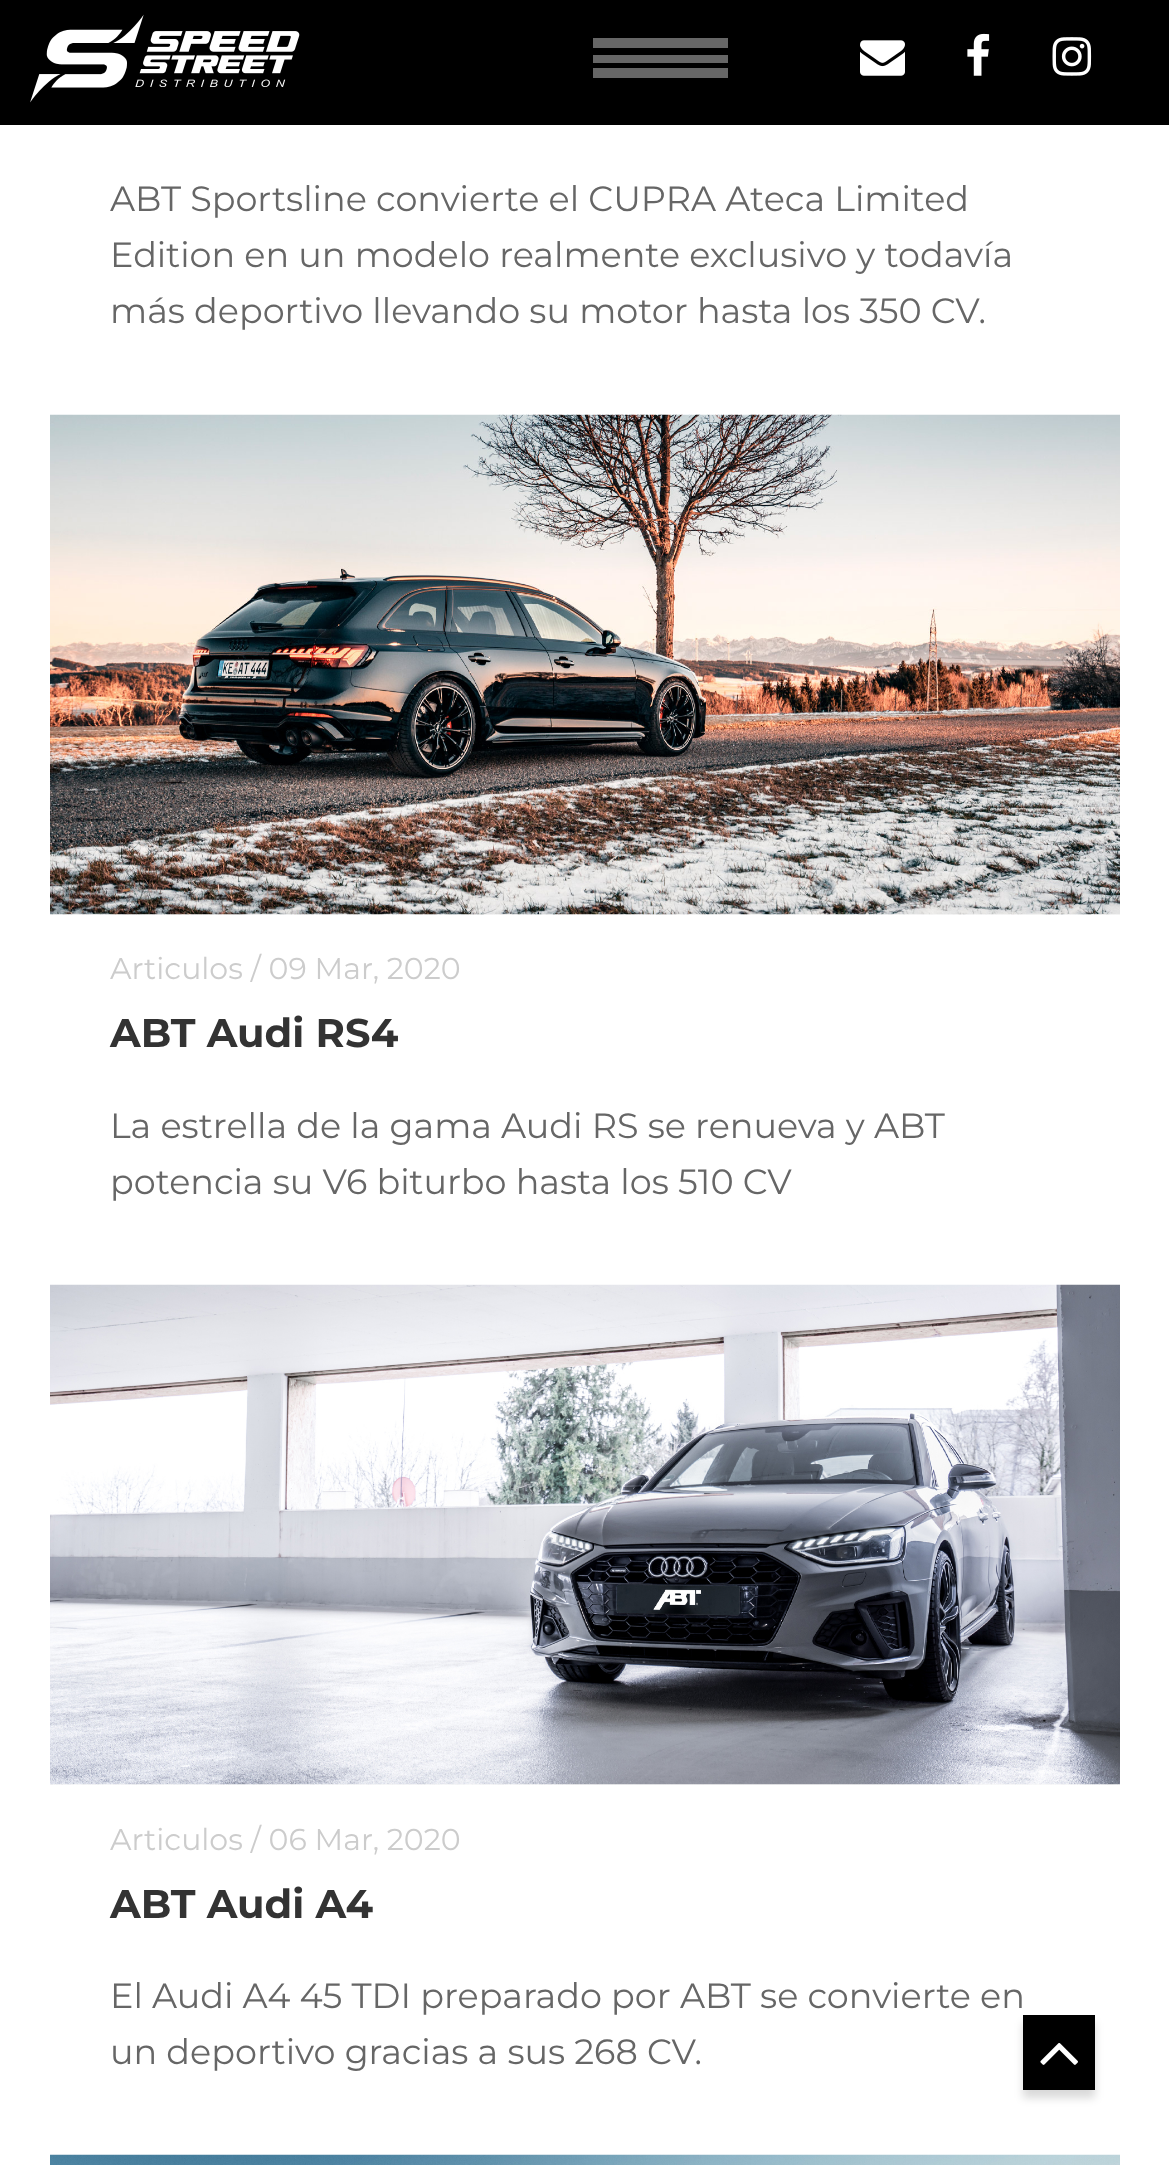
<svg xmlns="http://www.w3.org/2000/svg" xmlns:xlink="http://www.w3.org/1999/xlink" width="1169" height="2165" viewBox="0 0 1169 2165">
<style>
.cls-1{font:35px Montserrat;fill:#666666}
.cls-2{font:30px Montserrat;fill:#cccccc}
.cls-3{font:bold 40px Montserrat;fill:#333333}
</style>
<rect width="100%" height="100%" fill="#ffffff"/>
<rect fill="#000000" x="0" y="0" width="1169" height="125"/>
<image xlink:href="image0.png" x="30" y="14" width="270" height="89"/>
<rect fill="#666666" x="593" y="38" width="135" height="10"/>
<rect fill="#666666" x="593" y="55" width="135" height="8"/>
<rect fill="#666666" x="593" y="68" width="135" height="10"/>
<image xlink:href="image1.png" x="860" y="40" width="45" height="36"/>
<image xlink:href="image2.png" x="967" y="33" width="23" height="43"/>
<image xlink:href="image3.png" x="1052" y="37" width="40" height="39"/>
<rect fill="#f8f8f8" x="50" y="914" width="1070" height="1"/>
<image xlink:href="image4.png" x="50" y="414" width="1070" height="501"/>
<rect fill="#f8f8f8" x="50" y="1784" width="1070" height="1"/>
<image xlink:href="image5.png" x="50" y="1284" width="1070" height="501"/>
<image xlink:href="image6.png" x="50" y="2154" width="1070" height="11"/>
<rect fill="#000000" fill-opacity="0.15" filter="blur(4px)" x="1023" y="2023" width="72" height="75"/>
<rect fill="#000000" x="1023" y="2015" width="72" height="75"/>
<image xlink:href="image7.png" x="1040" y="2043" width="38" height="22"/>
<text class="cls-1"><tspan x="110" y="211">ABT Sportsline convierte el CUPRA Ateca Limited</tspan><tspan x="110" y="267">Edition en un modelo realmente exclusivo y todavía</tspan><tspan x="110" y="323">más deportivo llevando su motor hasta los 350 CV.</tspan></text>
<text class="cls-2" x="110" y="979">Articulos / 09 Mar, 2020</text>
<text class="cls-3" x="110" y="1047">ABT Audi RS4</text>
<text class="cls-1"><tspan x="110" y="1138">La estrella de la gama Audi RS se renueva y ABT</tspan><tspan x="110" y="1194">potencia su V6 biturbo hasta los 510 CV</tspan></text>
<text class="cls-2" x="110" y="1850">Articulos / 06 Mar, 2020</text>
<text class="cls-3" x="110" y="1918">ABT Audi A4</text>
<text class="cls-1"><tspan x="110" y="2008">El Audi A4 45 TDI preparado por ABT se convierte en</tspan><tspan x="110" y="2064">un deportivo gracias a sus 268 CV.</tspan></text>
</svg>
